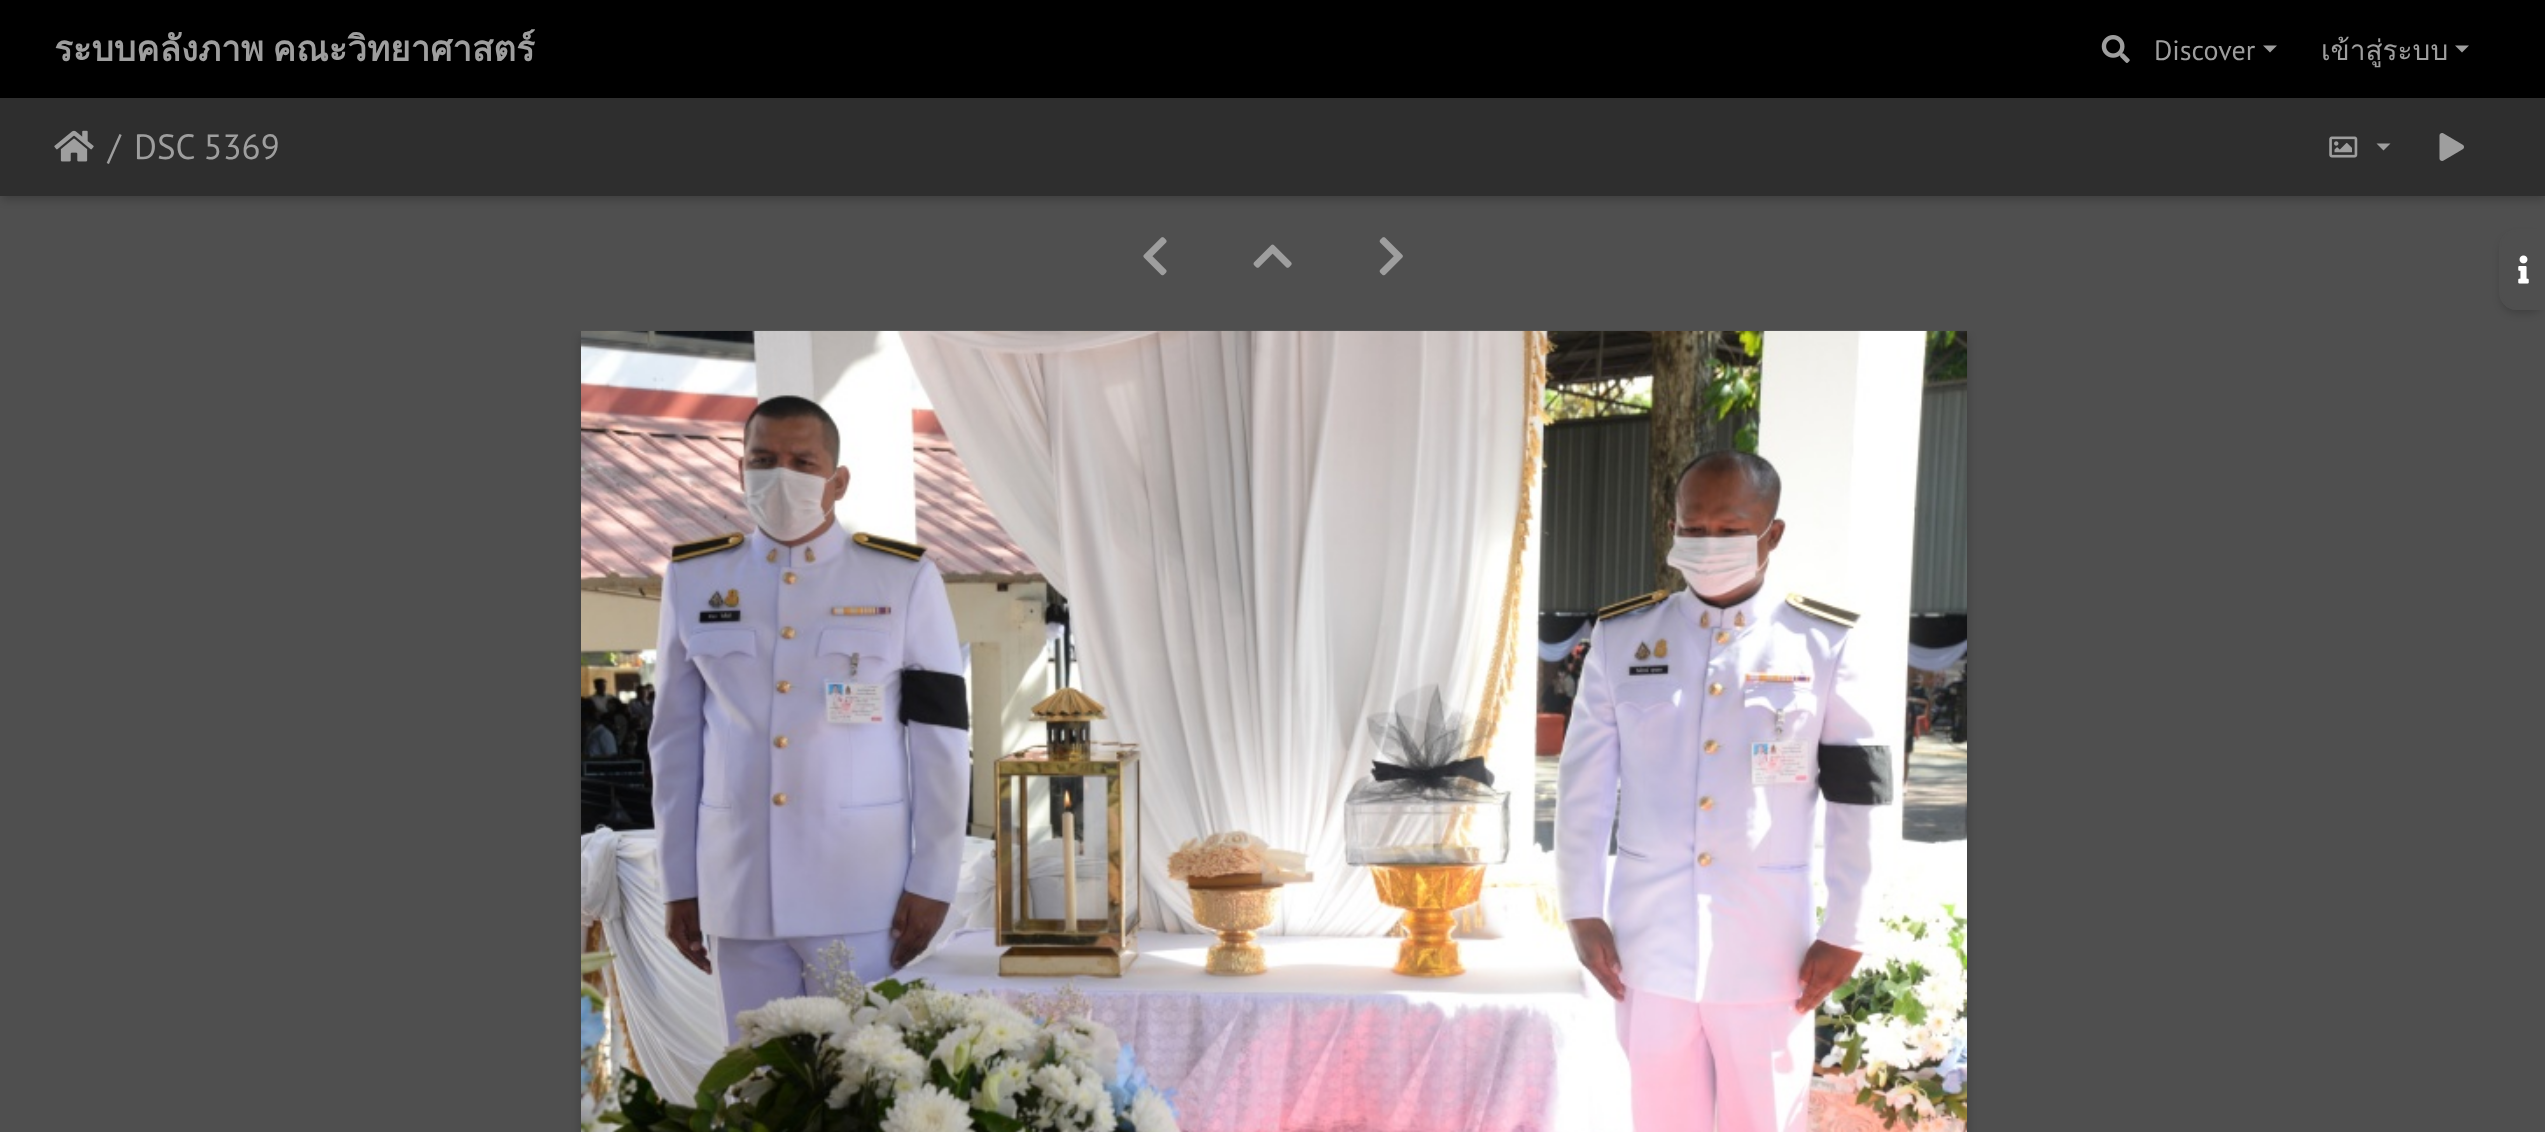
<svg xmlns="http://www.w3.org/2000/svg" xmlns:xlink="http://www.w3.org/1999/xlink" width="2545" height="1132" viewBox="0 0 2545 1132">
<style>
.cls-1{font:bold 35px Loma;fill:#9e9e9e}
.cls-2{font:28px PT Sans;fill:#9e9e9e}
.cls-3{font:28px Loma;fill:#9e9e9e}
.cls-4{font:35px PT Sans;fill:#9e9e9e}
</style>
<defs>
<clipPath id="clip1"><rect x="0" y="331" width="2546" height="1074"/></clipPath>
</defs>
<rect width="100%" height="100%" fill="#4f4f4f"/>
<rect fill="#000000" fill-opacity="0.2" filter="blur(4.5px)" x="2" y="105" width="2543" height="95"/>
<rect fill="#000000" x="0" y="0" width="2545" height="98"/>
<image xlink:href="image0.png" x="2101" y="35" width="29" height="28"/>
<path fill="#9e9e9e" d="M2263 45.5H2277L2270 52.5Z"/>
<path fill="#9e9e9e" d="M2455 45.5H2469L2462 52.5Z"/>
<rect fill="#2e2e2e" x="0" y="98" width="2545" height="98"/>
<image xlink:href="image1.png" x="54" y="130" width="40" height="32"/>
<image xlink:href="image2.png" x="2329" y="136" width="29" height="22"/>
<path fill="#9e9e9e" d="M2376.5 143.5H2390.5L2383.5 150.5Z"/>
<image xlink:href="image3.png" x="2439" y="133" width="25" height="28"/>
<image xlink:href="image4.png" x="1143" y="237" width="24" height="39"/>
<image xlink:href="image5.png" x="1253" y="244" width="39" height="24"/>
<image xlink:href="image6.png" x="1379" y="237" width="24" height="39"/>
<rect fill="#000000" fill-opacity="0.2" filter="blur(4.5px)" x="2501" y="236" width="44" height="77" rx="16"/>
<path fill="#4f4f4f" d="M2517 229H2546V310H2517C2507 310 2499 302 2499 292V247C2499 237 2507 229 2517 229Z"/>
<path fill="#4f4f4f" fill-rule="evenodd" d="M2516 229H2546V310H2516C2507 310 2499 302 2499 292V247C2499 237 2507 229 2516 229ZM2516 231H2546V308H2516C2508 308 2501 301 2501 292V247C2501 238 2508 231 2516 231Z"/>
<image xlink:href="image7.png" x="2518" y="255" width="11" height="29"/>
<g clip-path="url(#clip1)">
<rect fill="#000000" fill-opacity="0.23" filter="blur(5px)" x="581" y="336" width="1386" height="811"/>
</g>
<image xlink:href="image8.png" x="581" y="330" width="1386" height="802"/>
<text class="cls-1" x="54" y="61" word-spacing="-3">ระบบคลังภาพ คณะวิทยาศาสตร์</text>
<text class="cls-2" x="2154" y="60">Discover</text>
<text class="cls-3" x="2321" y="60">เข้าสู่ระบบ</text>
<text class="cls-4" x="108" y="159">/</text>
<text class="cls-4" x="134" y="159">DSC 5369</text>
</svg>
